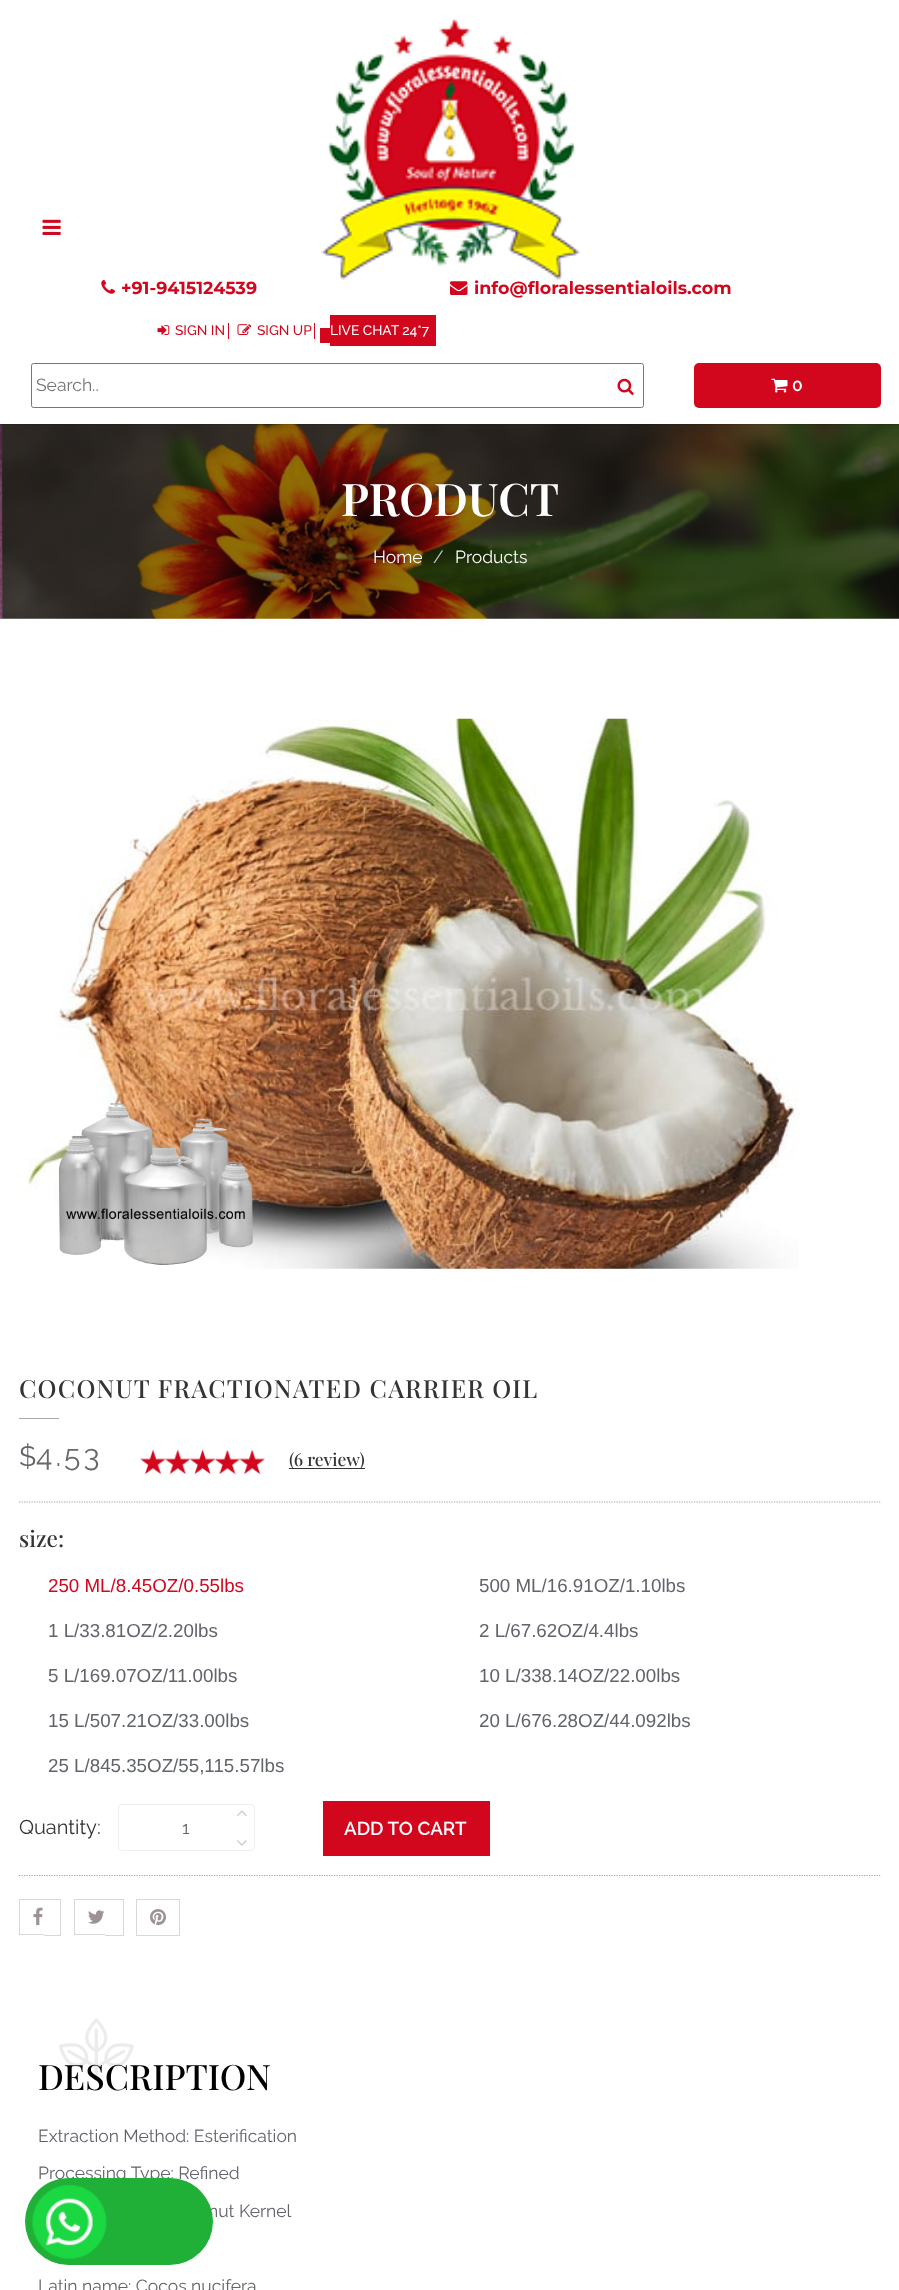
<svg xmlns="http://www.w3.org/2000/svg" xmlns:xlink="http://www.w3.org/1999/xlink" width="899" height="2290" viewBox="0 0 899 2290">
<style>
.cls-1{font:bold 17.5px Montserrat;fill:#d2061d}
.cls-2{font:500 13.75px Raleway;fill:#d2061d}
.cls-3{font:500 13.75px Raleway;fill:#ffffff}
.cls-4{font:17.5px Raleway;fill:#757575}
.cls-5{font:600 17.5px Raleway;fill:#ffffff}
.cls-6{font:600 45px Playfair Display;fill:#ffffff}
.cls-7{font:17.5px Raleway;fill:#ffffff}
.cls-8{font:17.5px Raleway;fill:#cccccc}
.cls-9{font:500 25px Playfair Display;letter-spacing:1.25px;fill:#343434}
.cls-10{font:28px Raleway;fill:#62646c}
.cls-11{font:30px Raleway;letter-spacing:3px;fill:#696969}
.cls-12{font:500 17.5px Playfair Display;fill:#343434}
.cls-13{font:500 22.5px Playfair Display;fill:#343434}
.cls-14{font:18.75px Liberation Sans;fill:#d2061d}
.cls-15{font:18.75px Liberation Sans;fill:#62646c}
.cls-16{font:20px Raleway;fill:#343434}
.cls-17{font:17.5px Raleway;fill:#62646c}
.cls-18{font:600 18.75px Raleway;fill:#ffffff}
.cls-19{font:500 35px Playfair Display;fill:#000000}
</style>
<rect width="100%" height="100%" fill="#ffffff"/>
<image xlink:href="image8.png" x="0" y="424" width="899" height="195"/>
<rect fill="#000000" fill-opacity="0.1" filter="blur(0.5px)" x="0" y="1" width="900" height="424"/>
<rect fill="#ffffff" x="0" y="0" width="899" height="424"/>
<image xlink:href="image0.png" x="321" y="18" width="259" height="262"/>
<image xlink:href="image1.png" x="42" y="219" width="19" height="16"/>
<image xlink:href="image2.png" x="101" y="280" width="14" height="14"/>
<image xlink:href="image3.png" x="450" y="281" width="18" height="14"/>
<rect fill="#d2061d" x="228" y="323" width="1" height="16"/>
<image xlink:href="image4.png" x="157" y="325" width="13" height="10"/>
<rect fill="#d2061d" x="314" y="323" width="1" height="16"/>
<image xlink:href="image5.png" x="237" y="324" width="15" height="11"/>
<rect fill="#d2061d" x="320" y="328" width="10" height="15"/>
<rect fill="#d2061d" x="330" y="315" width="106" height="31"/>
<rect fill="none" stroke="#767676" x="31.5" y="363.5" width="612" height="44" rx="2"/>
<image xlink:href="image6.png" x="617" y="378" width="17" height="17"/>
<rect fill="#d2061d" x="694" y="363" width="187" height="45" rx="5"/>
<image xlink:href="image7.png" x="771" y="378" width="17" height="15"/>
<image xlink:href="image9.png" x="24" y="718" width="775" height="551"/>
<image xlink:href="image10.png" x="58" y="1103" width="195" height="162"/>
<rect fill="#ababab" x="19" y="1418" width="40" height="1"/>
<image xlink:href="image11.png" x="140" y="1449" width="125" height="26"/>
<rect fill="#343434" x="289" y="1468" width="76" height="1"/>
<path fill="none" stroke="#a1a0a0" stroke-width="1.2" stroke-dasharray="1.25 1.25" d="M19 1502H881"/>
<path fill="none" stroke="#a1a0a0" stroke-width="1.2" stroke-dasharray="1.25 1.25" d="M19 1875.5H881"/>
<rect fill="none" stroke="#eeeeee" x="118.5" y="1804.5" width="136" height="46" rx="3.5"/>
<image xlink:href="image12.png" x="237" y="1810" width="10" height="6"/>
<image xlink:href="image13.png" x="237" y="1840" width="10" height="6"/>
<rect fill="#d2061d" x="323" y="1801" width="167" height="55"/>
<rect fill="#d8d8d8" x="19" y="1899" width="42" height="1"/>
<rect fill="#d8d8d8" x="19" y="1934" width="25" height="1"/>
<rect fill="#d8d8d8" x="19" y="1899" width="1" height="36"/>
<rect fill="#d8d8d8" x="60" y="1899" width="1" height="37"/>
<rect fill="#d8d8d8" x="44" y="1935" width="17" height="1"/>
<image xlink:href="image14.png" x="33" y="1907" width="10" height="19"/>
<rect fill="#d8d8d8" x="74" y="1899" width="50" height="1"/>
<rect fill="#d8d8d8" x="74" y="1934" width="31" height="1"/>
<rect fill="#d8d8d8" x="74" y="1899" width="1" height="36"/>
<rect fill="#d8d8d8" x="123" y="1899" width="1" height="37"/>
<rect fill="#d8d8d8" x="105" y="1935" width="19" height="1"/>
<image xlink:href="image15.png" x="88" y="1910" width="17" height="14"/>
<rect fill="none" stroke="#d8d8d8" x="136.5" y="1899.5" width="43" height="36"/>
<image xlink:href="image16.png" x="150" y="1909" width="16" height="17"/>
<text class="cls-1" x="121" y="294">+91-9415124539</text>
<text class="cls-1" x="474" y="294">info@floralessentialoils.com</text>
<text class="cls-2" x="175" y="335">SIGN IN</text>
<text class="cls-2" x="257" y="335">SIGN UP</text>
<text class="cls-3" x="330" y="335">LIVE CHAT 24*7</text>
<text class="cls-4" x="36" y="391">Search..</text>
<text class="cls-5" x="792" y="391">0</text>
<text class="cls-6" x="341" y="516">PRODUCT</text>
<text class="cls-7" x="373" y="563">Home</text>
<text class="cls-8" x="433" y="563">/</text>
<text class="cls-7" x="455" y="563">Products</text>
<text class="cls-9" x="19" y="1398">COCONUT FRACTIONATED CARRIER OIL</text>
<text class="cls-10" x="19" y="1466">$</text>
<text class="cls-11" x="36" y="1466">4.53</text>
<text class="cls-12" x="289" y="1466">(6 review)</text>
<text class="cls-13" x="19" y="1547">size:</text>
<text class="cls-14" x="48" y="1592">250 ML/8.45OZ/0.55lbs</text>
<text class="cls-15" x="479" y="1592">500 ML/16.91OZ/1.10lbs</text>
<text class="cls-15" x="48" y="1637">1 L/33.81OZ/2.20lbs</text>
<text class="cls-15" x="479" y="1637">2 L/67.62OZ/4.4lbs</text>
<text class="cls-15" x="48" y="1682">5 L/169.07OZ/11.00lbs</text>
<text class="cls-15" x="479" y="1682">10 L/338.14OZ/22.00lbs</text>
<text class="cls-15" x="48" y="1727">15 L/507.21OZ/33.00lbs</text>
<text class="cls-15" x="479" y="1727">20 L/676.28OZ/44.092lbs</text>
<text class="cls-15" x="48" y="1772">25 L/845.35OZ/55,115.57lbs</text>
<text class="cls-16" x="19" y="1834">Quantity:</text>
<text class="cls-17" x="182" y="1834">1</text>
<text class="cls-18" x="344" y="1835">ADD TO CART</text>
<text class="cls-19" x="38" y="2090">DESCRIPTION</text>
<image xlink:href="image17.png" x="59" y="2018" width="75" height="58"/>
<text class="cls-17" x="38" y="2142">Extraction Method: Esterification</text>
<text class="cls-17" x="38" y="2179">Processing Type: Refined</text>
<text class="cls-17" x="208" y="2217">nut Kernel</text>
<text class="cls-17" x="38" y="2292">Latin name: Cocos nucifera</text>
<rect fill="#20b038" x="25" y="2178" width="188" height="87" rx="43.5"/>
<image xlink:href="image18.png" x="32" y="2185" width="75" height="74"/>
</svg>
